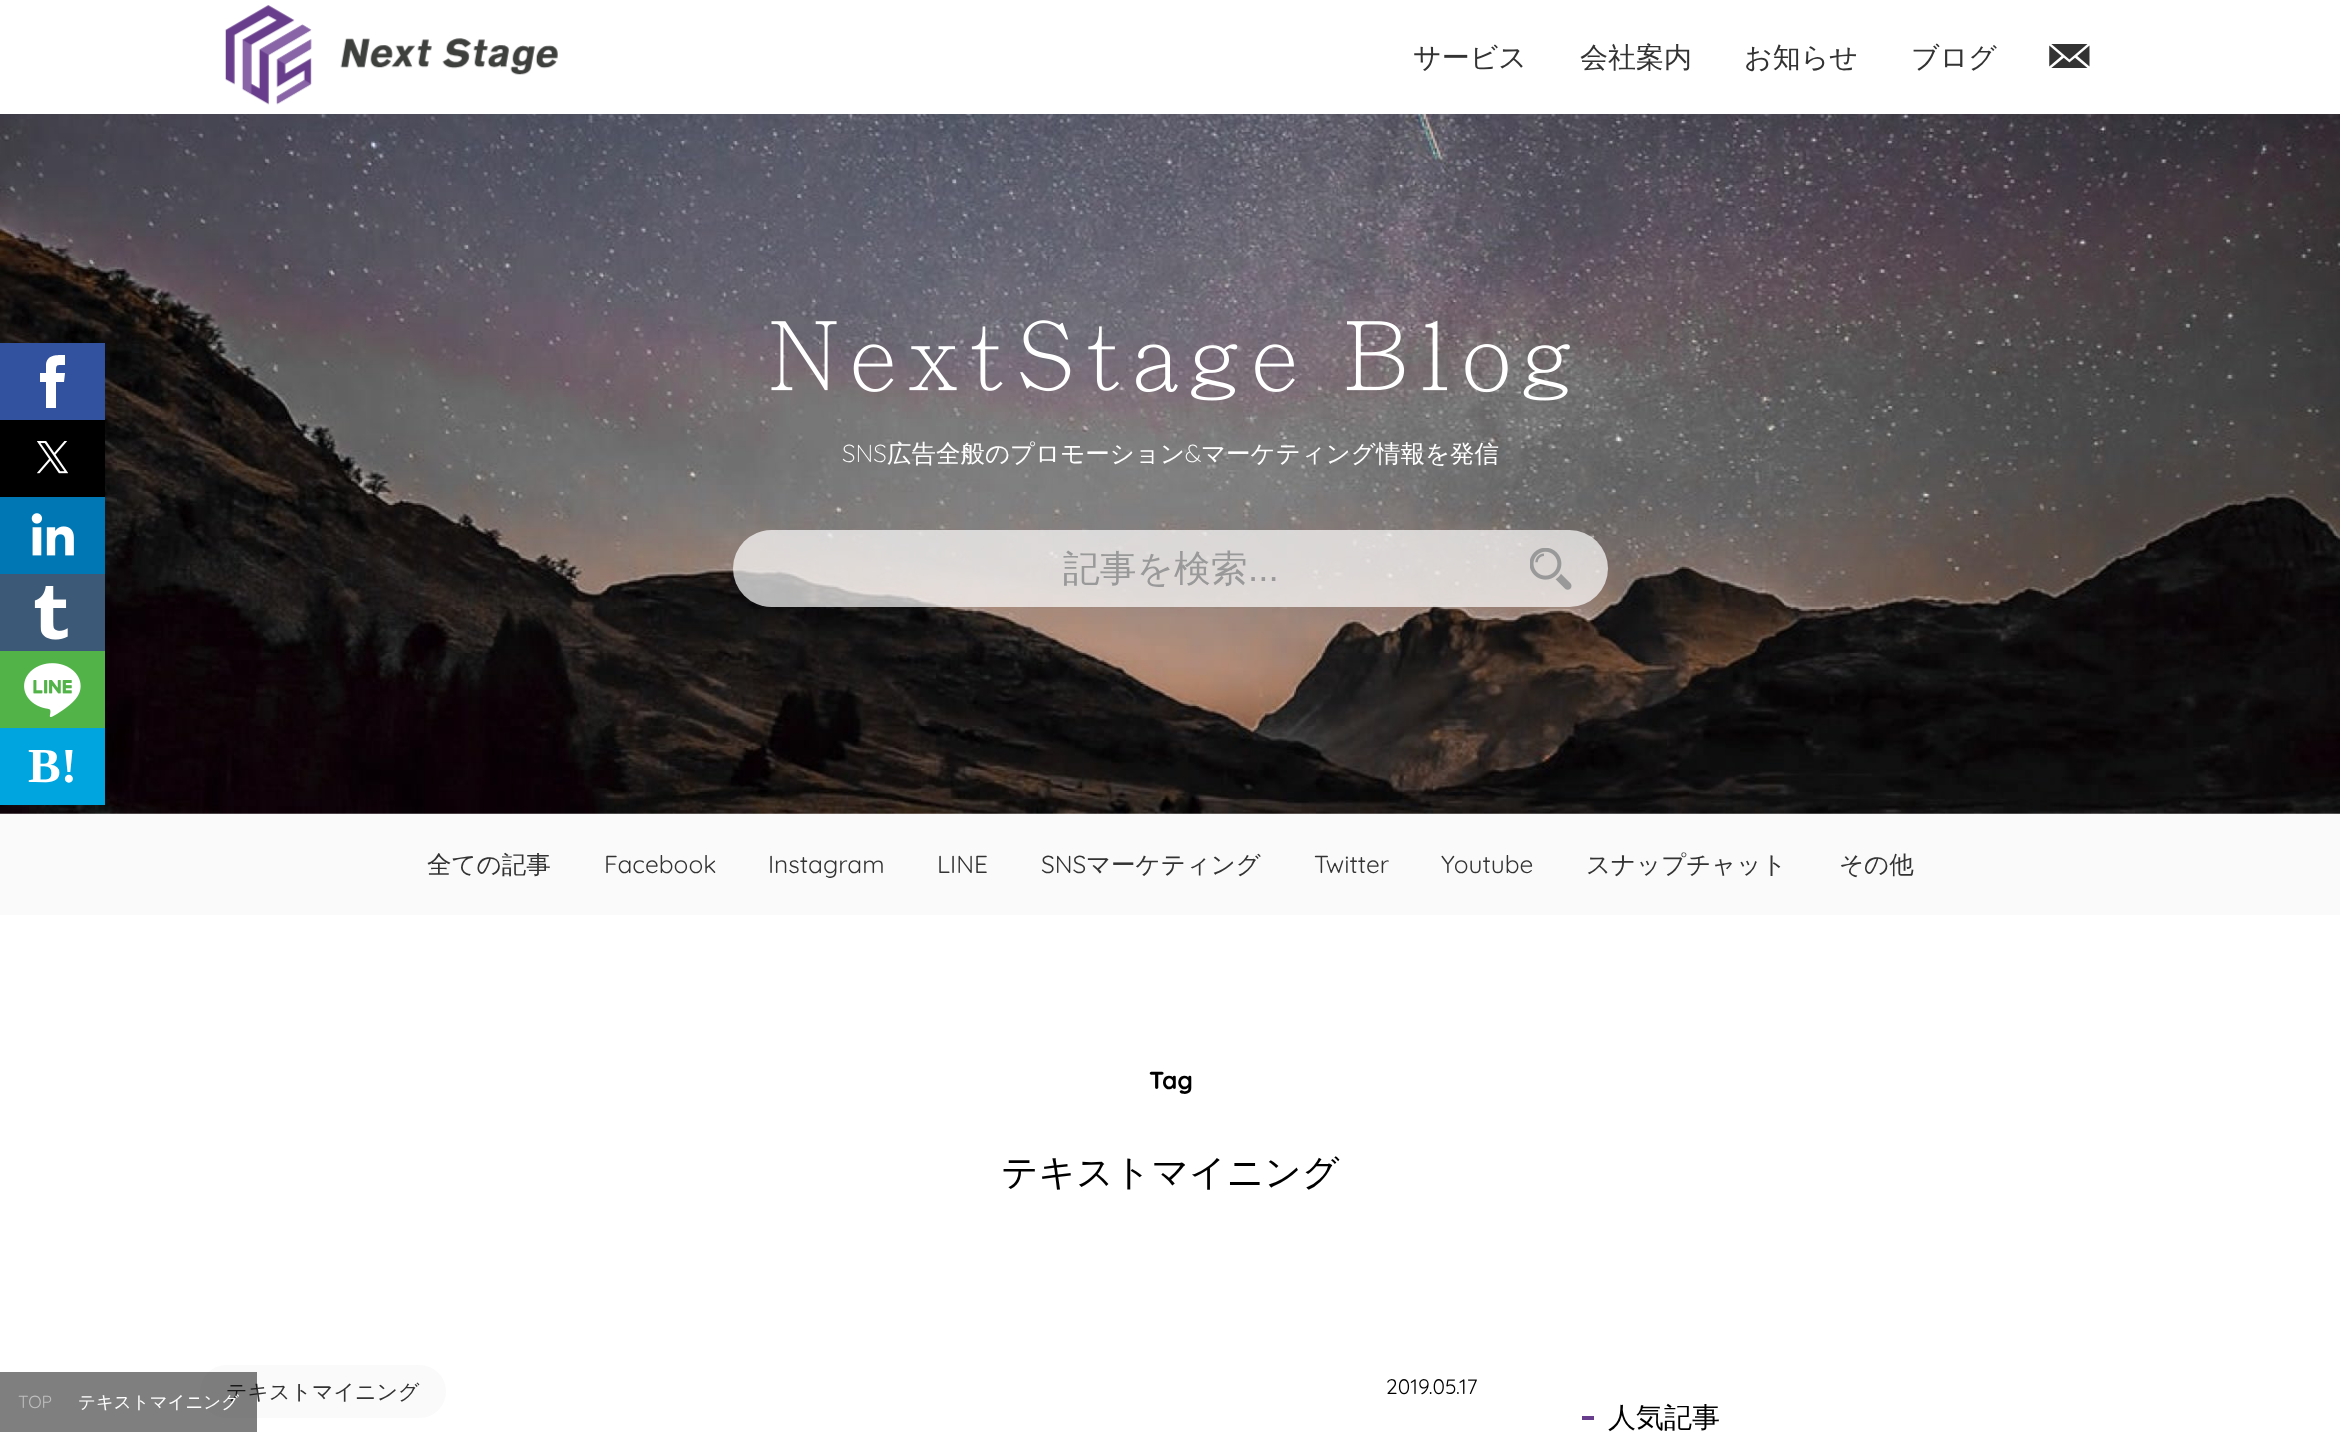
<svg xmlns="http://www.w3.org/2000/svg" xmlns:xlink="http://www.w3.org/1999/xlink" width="2340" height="1432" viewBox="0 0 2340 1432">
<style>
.cls-1{font:500 28px WenQuanYi Zen Hei;fill:#333333}
.cls-2{font:300 24.5px Quicksand;fill:#ffffff}
.cls-3{font:500 24.5px WenQuanYi Zen Hei;fill:#ffffff}
.cls-4{font:500 36.75px WenQuanYi Zen Hei;fill:#999999}
.cls-5{font:36.75px Liberation Sans;fill:#999999}
.cls-6{font:500 24.5px WenQuanYi Zen Hei;fill:#333333}
.cls-7{font:24.5px Quicksand;fill:#333333}
.cls-8{font:bold 24.5px Quicksand;fill:#000000}
.cls-9{font:500 36.75px WenQuanYi Zen Hei;fill:#000000}
.cls-10{font:500 21px WenQuanYi Zen Hei;fill:#333333}
.cls-11{font:17.5px Quicksand;fill:#bfbfbf}
.cls-12{font:500 17.5px WenQuanYi Zen Hei;fill:#ffffff}
.cls-13{font:21px Quicksand;fill:#000000}
.cls-14{font:500 28px WenQuanYi Zen Hei;fill:#000000}
.cls-15{font:bold 49px Liberation Serif;fill:#ffffff}
</style>
<rect width="100%" height="100%" fill="#ffffff"/>
<image xlink:href="image0.png" x="225" y="5" width="333" height="100"/>
<image xlink:href="image1.png" x="2049" y="44" width="41" height="24"/>
<image xlink:href="image2.png" x="0" y="114" width="2340" height="700"/>
<image xlink:href="image3.png" x="771" y="320" width="799" height="81"/>
<rect fill="#ffffff" fill-opacity="0.7" x="733" y="530" width="875" height="77" rx="38.5"/>
<image xlink:href="image4.png" x="1530" y="548" width="42" height="42"/>
<rect fill="#fafafa" x="0" y="814" width="2340" height="101"/>
<rect fill="#fafafa" x="200" y="1365" width="246" height="53" rx="26.5"/>
<rect fill="#683d8d" x="1582" y="1416" width="12" height="4"/>
<rect fill="#32529f" x="0" y="343" width="105" height="77"/>
<path fill="#ffffff" d="M46 373H40V382H46V408H56V382H64L65 373H56C56 364 56 365 65 365V355C57 355 46 354 46 366Z"/>
<rect fill="#000000" x="0" y="420" width="105" height="77"/>
<image xlink:href="image5.png" x="37" y="441" width="31" height="33"/>
<rect fill="#0077b5" x="0" y="497" width="105" height="77"/>
<image xlink:href="image6.png" x="31" y="513" width="43" height="43"/>
<rect fill="#3c5a77" x="0" y="574" width="105" height="77"/>
<image xlink:href="image7.png" x="34" y="586" width="34" height="54"/>
<rect fill="#52b448" x="0" y="651" width="105" height="77"/>
<image xlink:href="image8.png" x="24" y="663" width="57" height="54"/>
<rect fill="#00a4de" x="0" y="728" width="105" height="77"/>
<text class="cls-1" x="1413" y="67">サービス</text>
<text class="cls-1" x="1580" y="67">会社案内</text>
<text class="cls-1" x="1744" y="67">お知らせ</text>
<text class="cls-1" x="1911" y="67">ブログ</text>
<text class="cls-2" x="842" y="462">SNS</text>
<text class="cls-3" x="887" y="462">広告全般のプロモーション</text>
<text class="cls-2" x="1185" y="462">&amp;</text>
<text class="cls-3" x="1201" y="462">マーケティング情報を発信</text>
<text class="cls-4" x="1063" y="581">記事を検索</text>
<text class="cls-5" x="1248" y="581">...</text>
<text class="cls-6" x="427" y="873">全ての記事</text>
<text class="cls-7" x="604" y="873">Facebook</text>
<text class="cls-7" x="768" y="873">Instagram</text>
<text class="cls-7" x="937" y="873">LINE</text>
<text class="cls-7" x="1041" y="873">SNS</text>
<text class="cls-6" x="1086" y="873">マーケティング</text>
<text class="cls-7" x="1314" y="873">Twitter</text>
<text class="cls-7" x="1441" y="873">Youtube</text>
<text class="cls-6" x="1586" y="873">スナップチャット</text>
<text class="cls-6" x="1839" y="873">その他</text>
<text class="cls-8" x="1149" y="1089">Tag</text>
<text class="cls-9" x="1001" y="1185">テキストマイニング</text>
<text class="cls-10" x="226" y="1399">テキストマイニング</text>
<rect fill="#000000" fill-opacity="0.5" x="0" y="1372" width="257" height="60"/>
<text class="cls-11" x="18" y="1408">TOP</text>
<text class="cls-12" x="78" y="1408">テキストマイニング</text>
<text class="cls-13" x="1386" y="1394">2019.05.17</text>
<text class="cls-14" x="1608" y="1427">人気記事</text>
<text class="cls-15" x="28" y="782">B!</text>
</svg>
